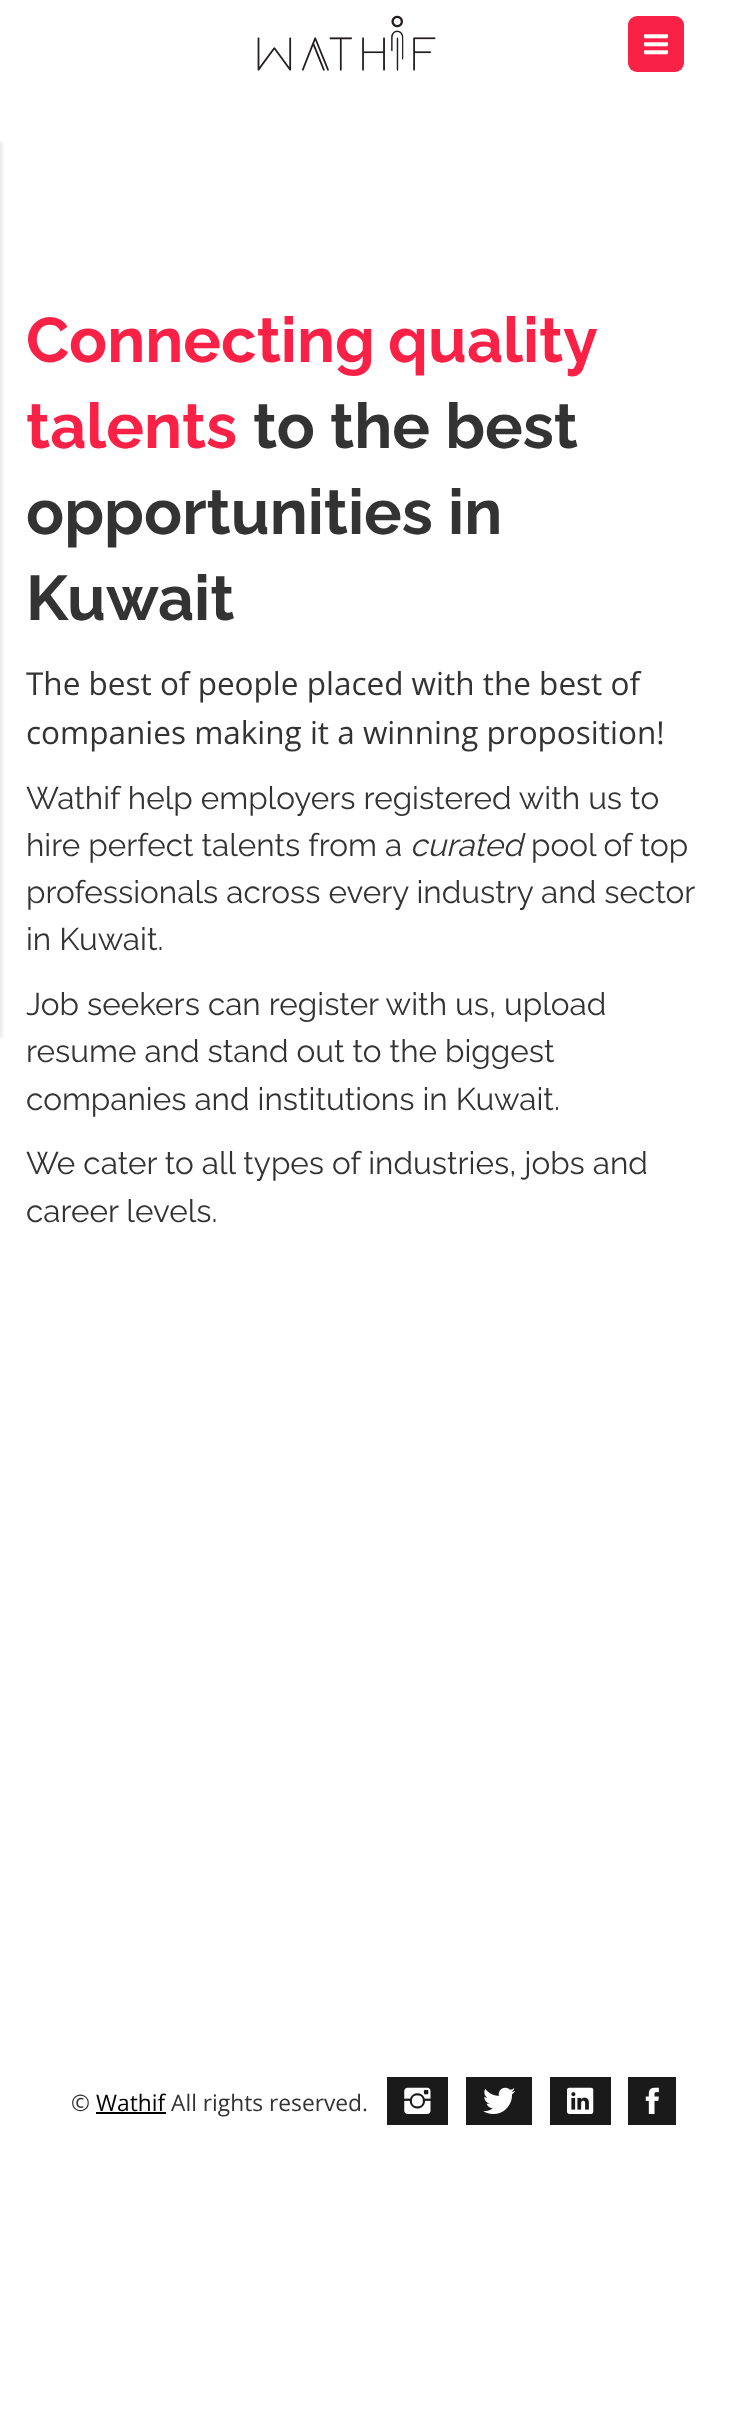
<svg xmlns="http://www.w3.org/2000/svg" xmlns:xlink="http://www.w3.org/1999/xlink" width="736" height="2431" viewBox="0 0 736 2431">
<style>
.cls-1{font:bold 63px Raleway;fill:#fa2147}
.cls-2{font:bold 63px Raleway;fill:#333333}
.cls-3{font:31.5px Open Sans;fill:#333333}
.cls-4{font:31.5px Raleway;fill:#333333}
.cls-5{font:italic 31.5px Raleway;fill:#333333}
.cls-6{font:22.75px Open Sans;fill:#333333}
.cls-7{font:22.75px Open Sans;fill:#000000}
</style>
<rect width="100%" height="100%" fill="#ffffff"/>
<rect fill="#000000" fill-opacity="0.1" filter="blur(2px)" x="-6" y="142" width="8" height="896"/>
<image xlink:href="image0.png" x="257" y="15" width="179" height="56"/>
<rect fill="#fa2147" x="628" y="16" width="56" height="56" rx="9"/>
<image xlink:href="image1.png" x="644" y="34" width="24" height="21"/>
<rect fill="#000000" x="96" y="2112" width="70" height="2"/>
<rect fill="#1a1a1a" x="387" y="2077" width="61" height="48"/>
<image xlink:href="image2.png" x="404" y="2087" width="27" height="27"/>
<rect fill="#1a1a1a" x="466" y="2077" width="66" height="48"/>
<image xlink:href="image3.png" x="483" y="2087" width="32" height="27"/>
<rect fill="#1a1a1a" x="550" y="2077" width="61" height="48"/>
<image xlink:href="image4.png" x="567" y="2087" width="27" height="27"/>
<rect fill="#1a1a1a" x="628" y="2077" width="48" height="48"/>
<image xlink:href="image5.png" x="645" y="2087" width="14" height="27"/>
<text class="cls-1"><tspan x="26" y="362" word-spacing="-2">Connecting quality</tspan><tspan x="26" y="448">talents</tspan></text>
<text class="cls-2" x="253" y="448">to the best</text>
<text class="cls-2"><tspan x="26" y="534">opportunities in</tspan><tspan x="26" y="620">Kuwait</tspan></text>
<text class="cls-3"><tspan x="26" y="695">The best of people placed with the best of</tspan><tspan x="26" y="744">companies making it a winning proposition!</tspan></text>
<text class="cls-4"><tspan x="26" y="809">Wathif help employers registered with us to</tspan><tspan x="26" y="856">hire perfect talents from a</tspan></text>
<text class="cls-5" x="410" y="856">curated</text>
<text class="cls-4" x="531" y="856">pool of top</text>
<text class="cls-4"><tspan x="26" y="903">professionals across every industry and sector</tspan><tspan x="26" y="950">in Kuwait.</tspan></text>
<text class="cls-4"><tspan x="26" y="1015">Job seekers can register with us, upload</tspan><tspan x="26" y="1062">resume and stand out to the biggest</tspan><tspan x="26" y="1110">companies and institutions in Kuwait.</tspan></text>
<text class="cls-4"><tspan x="26" y="1174">We cater to all types of industries, jobs and</tspan><tspan x="26" y="1222">career levels.</tspan></text>
<text class="cls-6" x="71" y="2111">©</text>
<text class="cls-7" x="96" y="2111">Wathif</text>
<text class="cls-6" x="171" y="2111">All rights reserved.</text>
</svg>
